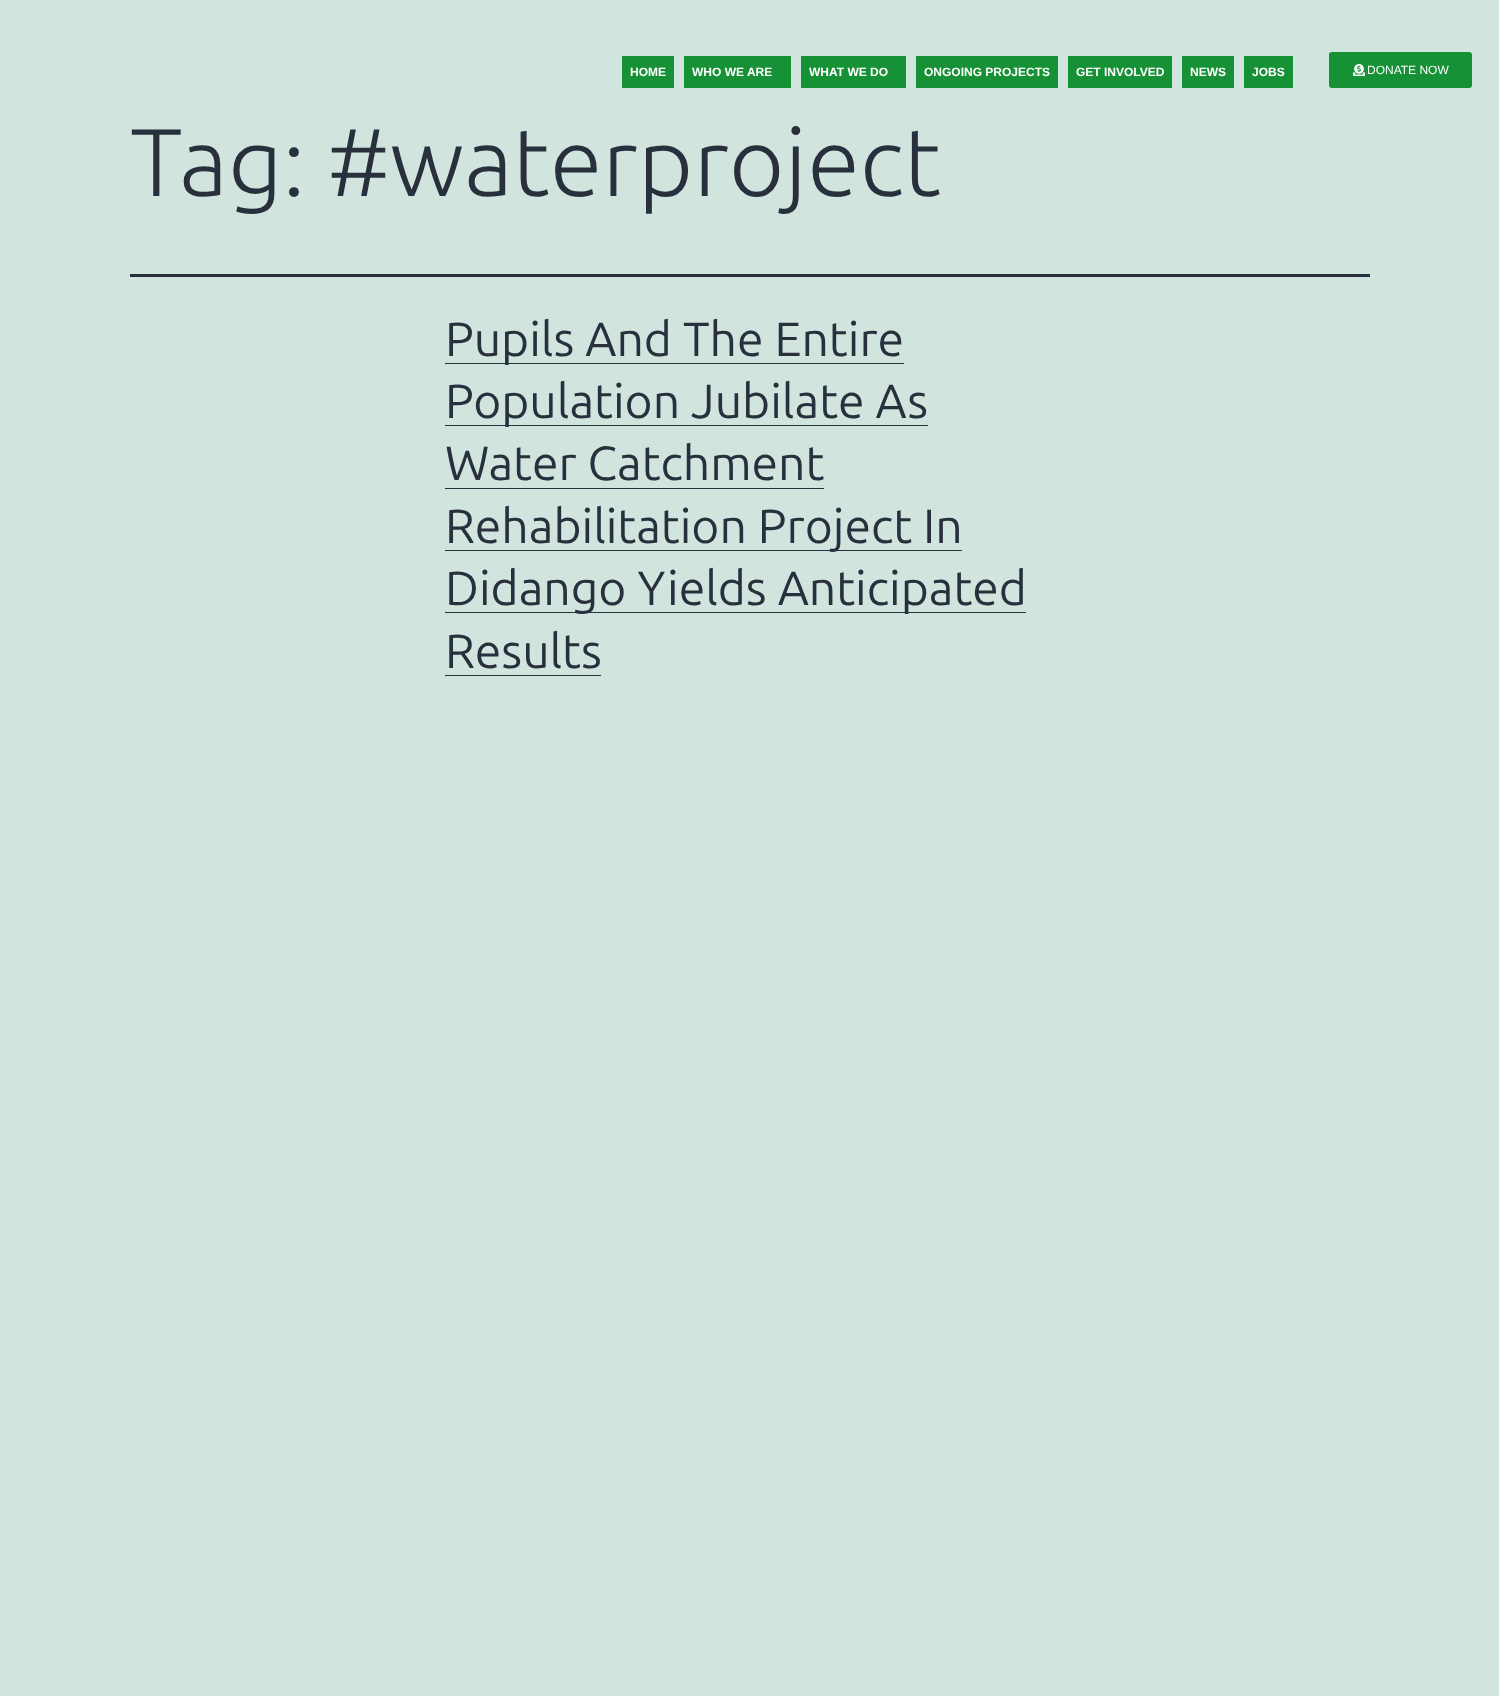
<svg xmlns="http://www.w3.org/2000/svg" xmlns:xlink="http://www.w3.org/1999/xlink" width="1499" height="1696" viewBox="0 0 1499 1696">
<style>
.cls-1{font:bold 12px Liberation Sans;fill:#ffffff}
.cls-2{font:12px Liberation Sans;fill:#ffffff}
.cls-3{font:300 96px Ubuntu;fill:#28303d}
.cls-4{font:48px Ubuntu;fill:#28303d}
</style>
<rect width="100%" height="100%" fill="#d1e4dd"/>
<rect fill="#169135" x="622" y="56" width="52" height="32"/>
<rect fill="#169135" x="684" y="56" width="107" height="32"/>
<rect fill="#169135" x="801" y="56" width="105" height="32"/>
<rect fill="#169135" x="916" y="56" width="142" height="32"/>
<rect fill="#169135" x="1068" y="56" width="104" height="32"/>
<rect fill="#169135" x="1182" y="56" width="52" height="32"/>
<rect fill="#169135" x="1244" y="56" width="49" height="32"/>
<rect fill="#169135" x="1329" y="52" width="143" height="36" rx="3"/>
<image xlink:href="image0.png" x="1353" y="64" width="12" height="12"/>
<rect fill="#28303d" x="130" y="274" width="1240" height="3"/>
<rect fill="#28303d" x="445" y="363" width="459" height="1"/>
<rect fill="#28303d" x="445" y="425" width="483" height="1"/>
<rect fill="#28303d" x="445" y="488" width="379" height="1"/>
<rect fill="#28303d" x="445" y="550" width="517" height="1"/>
<rect fill="#28303d" x="445" y="612" width="581" height="1"/>
<rect fill="#28303d" x="445" y="675" width="156" height="1"/>
<text class="cls-1" x="630" y="76">HOME</text>
<text class="cls-1" x="692" y="76">WHO WE ARE</text>
<text class="cls-1" x="809" y="76">WHAT WE DO</text>
<text class="cls-1" x="924" y="76">ONGOING PROJECTS</text>
<text class="cls-1" x="1076" y="76">GET INVOLVED</text>
<text class="cls-1" x="1190" y="76">NEWS</text>
<text class="cls-1" x="1252" y="76">JOBS</text>
<text class="cls-2" x="1367" y="74">DONATE NOW</text>
<text class="cls-3" x="130" y="196">Tag: #waterproject</text>
<text class="cls-4"><tspan x="445" y="356">Pupils And The Entire</tspan><tspan x="445" y="418">Population Jubilate As</tspan><tspan x="445" y="480">Water Catchment</tspan><tspan x="445" y="543">Rehabilitation Project In</tspan><tspan x="445" y="605">Didango Yields Anticipated</tspan><tspan x="445" y="668">Results</tspan></text>
</svg>
